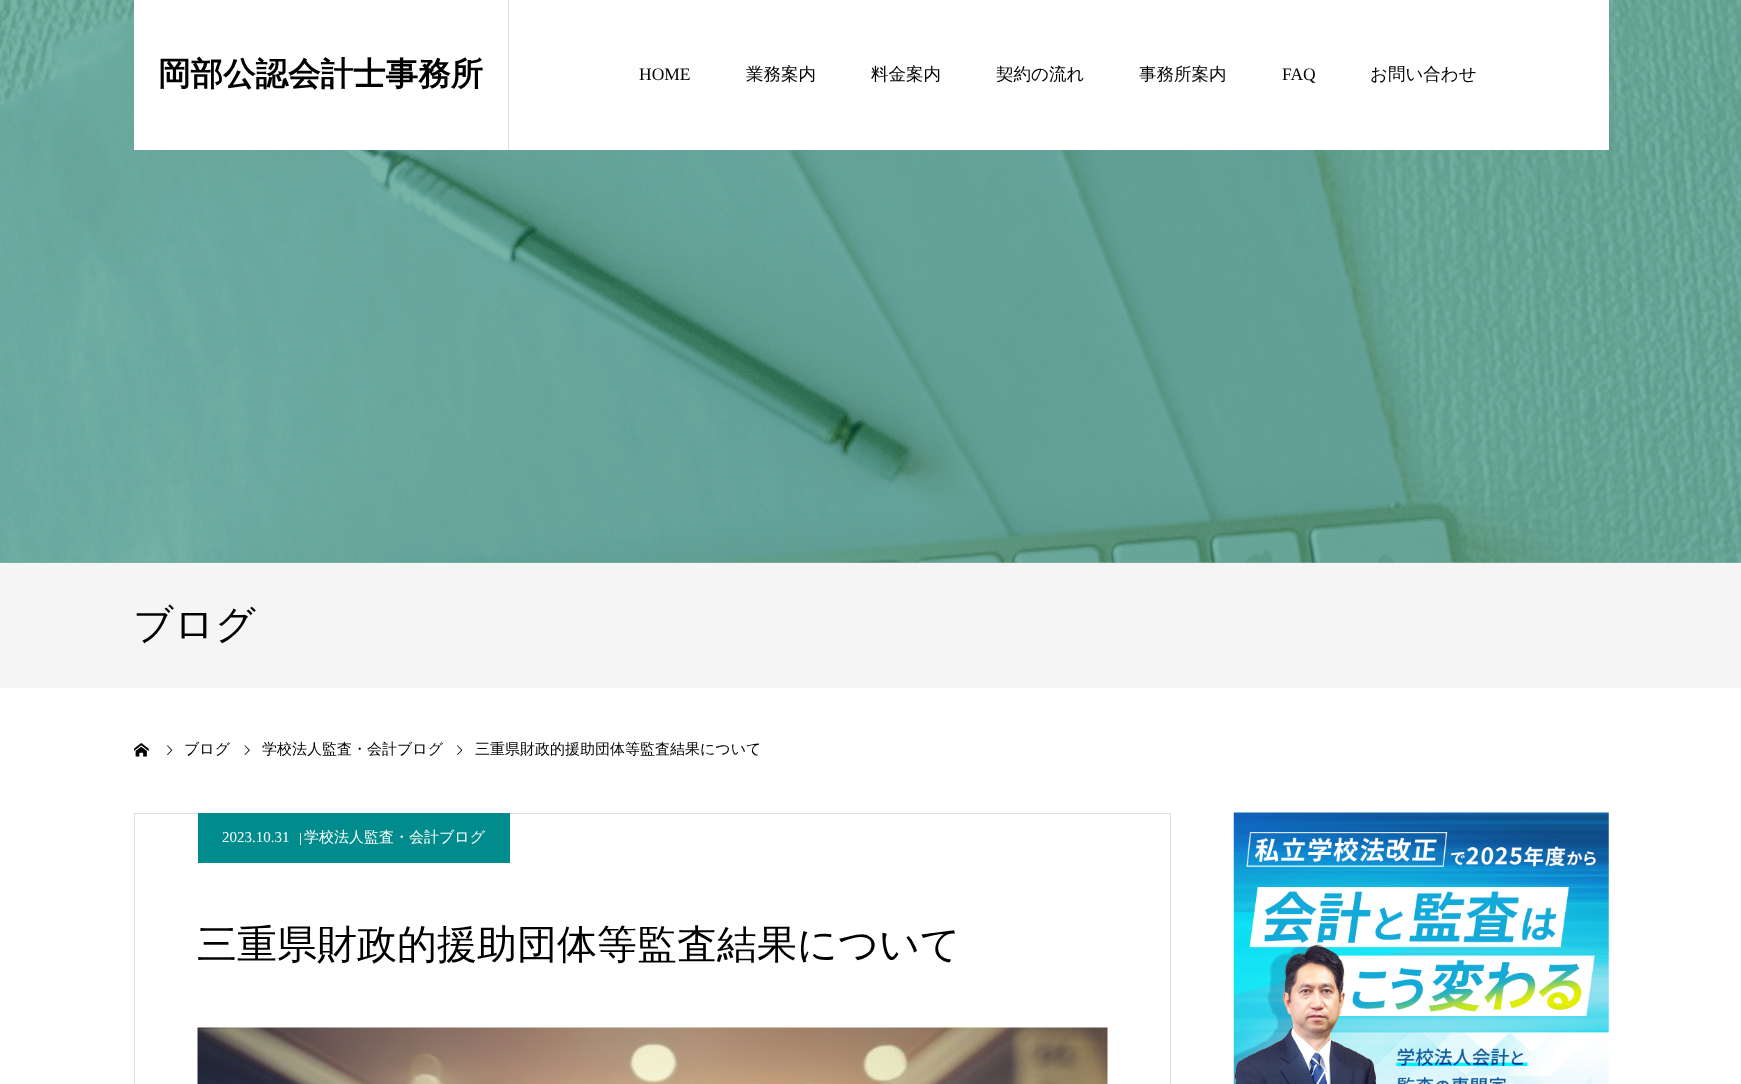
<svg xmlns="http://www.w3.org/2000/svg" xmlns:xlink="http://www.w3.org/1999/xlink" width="1741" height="1084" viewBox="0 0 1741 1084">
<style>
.cls-1{font:bold 32.5px WenQuanYi Zen Hei;fill:#000000}
.cls-2{font:17.5px Liberation Serif;fill:#000000}
.cls-3{font:500 17.5px WenQuanYi Zen Hei;fill:#000000}
.cls-4{font:500 40px WenQuanYi Zen Hei;fill:#000000}
.cls-5{font:500 15px WenQuanYi Zen Hei;fill:#000000}
.cls-6{font:15px Liberation Serif;fill:#ffffff}
.cls-7{font:500 15px WenQuanYi Zen Hei;fill:#ffffff}
</style>
<rect width="100%" height="100%" fill="#ffffff"/>
<rect fill="#80bdad" x="0" y="562" width="1741" height="1"/>
<image xlink:href="image0.png" x="0" y="0" width="1741" height="563"/>
<rect fill="#ffffff" x="134" y="0" width="1475" height="150"/>
<rect fill="#dddddd" x="508" y="0" width="1" height="150"/>
<rect fill="#f5f5f5" x="0" y="563" width="1741" height="125"/>
<image xlink:href="image1.png" x="134" y="743" width="15" height="14"/>
<image xlink:href="image2.png" x="167" y="745" width="6" height="10"/>
<image xlink:href="image3.png" x="244" y="745" width="6" height="10"/>
<image xlink:href="image2.png" x="457" y="745" width="6" height="10"/>
<rect fill="none" stroke="#dddddd" x="134.5" y="813.5" width="1036" height="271"/>
<rect fill="#008c8c" x="198" y="813" width="312" height="50"/>
<rect fill="#ffffff" x="300" y="833" width="1" height="12"/>
<image xlink:href="image4.png" x="197" y="1027" width="911" height="57"/>
<image xlink:href="image5.png" x="1233" y="812" width="376" height="272"/>
<text class="cls-1" x="158" y="85">岡部公認会計士事務所</text>
<text class="cls-2" x="639" y="80">HOME</text>
<text class="cls-3" x="746" y="80">業務案内</text>
<text class="cls-3" x="871" y="80">料金案内</text>
<text class="cls-3" x="996" y="80">契約の流れ</text>
<text class="cls-3" x="1139" y="80">事務所案内</text>
<text class="cls-2" x="1282" y="80">FAQ</text>
<text class="cls-3" x="1370" y="80">お問い合わせ</text>
<text class="cls-4" x="133" y="638">ブログ</text>
<text class="cls-5" x="184" y="754">ブログ</text>
<text class="cls-5" x="262" y="754">学校法人監査・会計ブログ</text>
<text class="cls-5" x="475" y="754">三重県財政的援助団体等監査結果について</text>
<text class="cls-6" x="222" y="842">2023.10.31</text>
<text class="cls-7" x="304" y="842">学校法人監査・会計ブログ</text>
<text class="cls-4" x="197" y="958">三重県財政的援助団体等監査結果について</text>
</svg>
